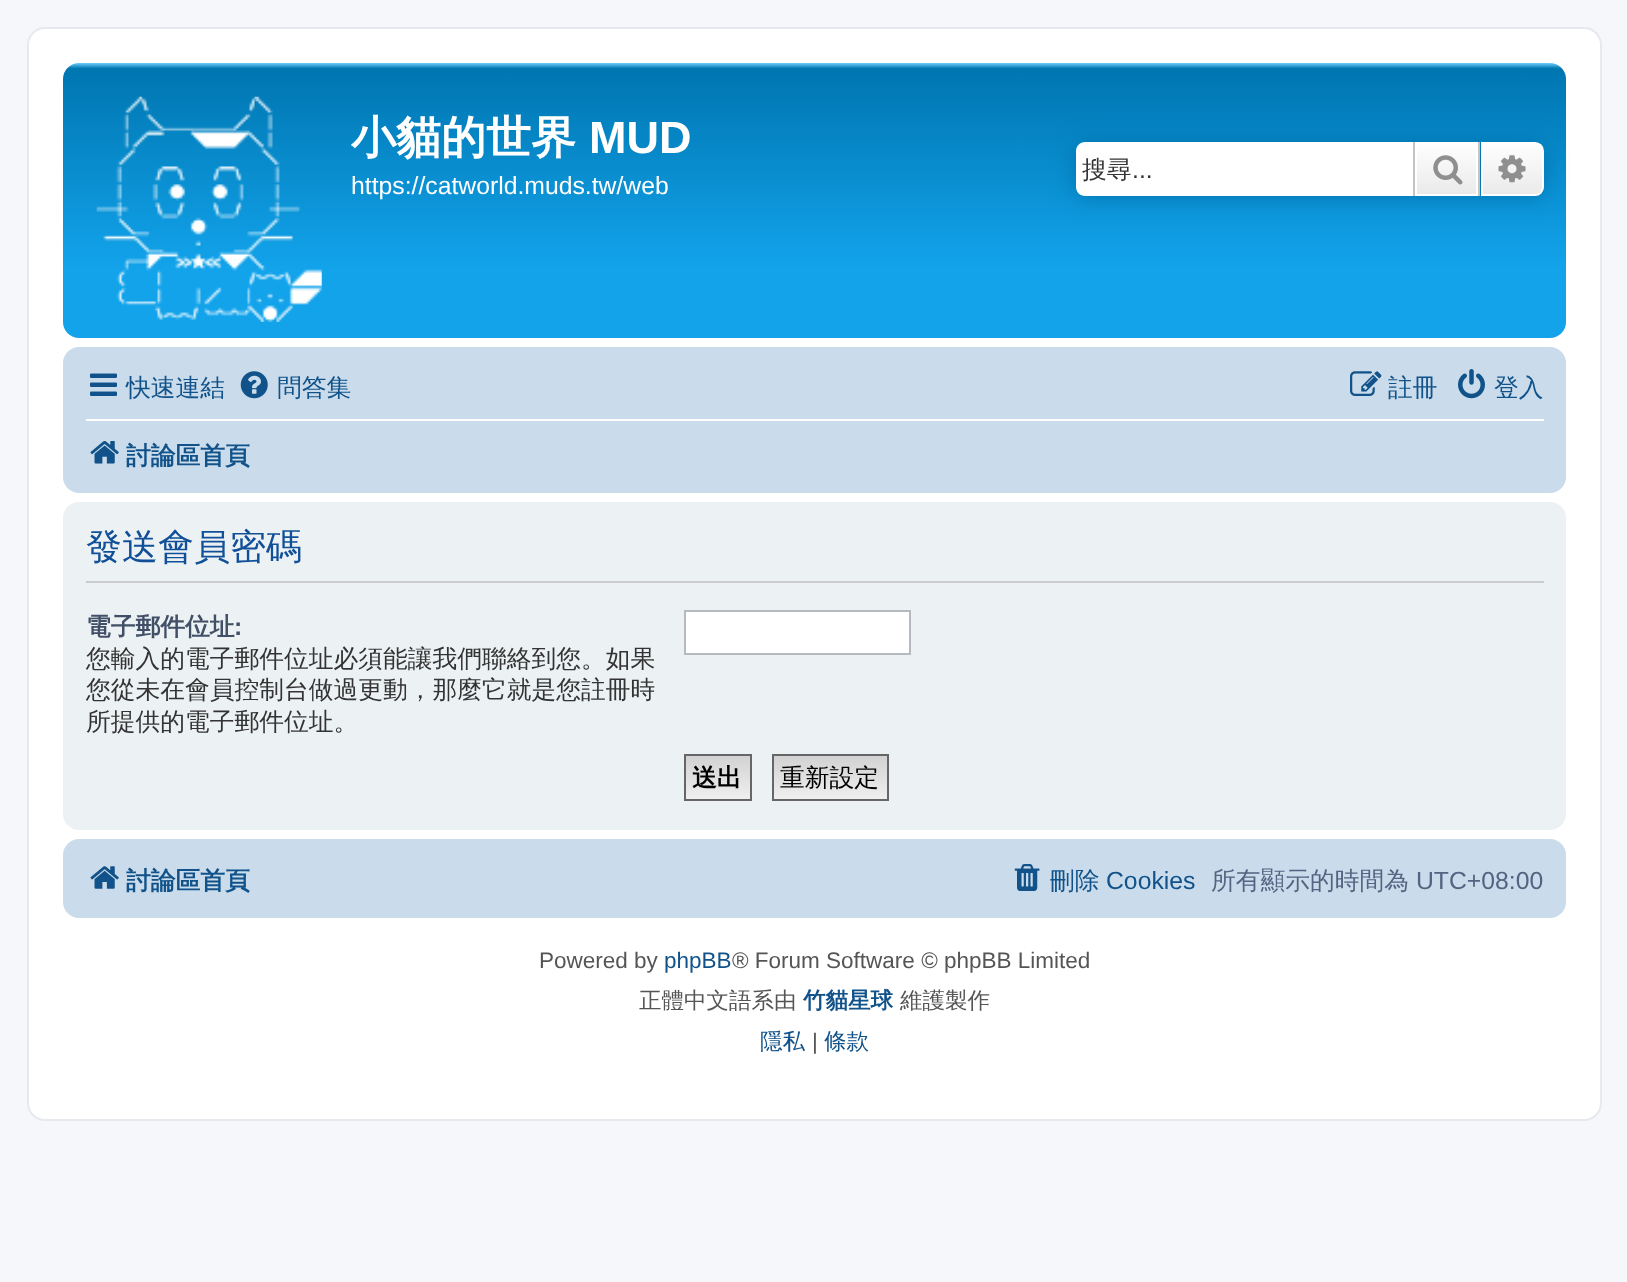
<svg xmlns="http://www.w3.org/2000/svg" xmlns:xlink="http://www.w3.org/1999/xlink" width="1627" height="1282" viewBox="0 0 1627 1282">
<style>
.cls-1{font:bold 45px WenQuanYi Zen Hei;fill:#ffffff}
.cls-2{font:bold 45px Liberation Sans;fill:#ffffff}
.cls-3{font:24.75px Liberation Sans;fill:#ffffff}
.cls-4{font:500 24.75px WenQuanYi Zen Hei;fill:#333333}
.cls-5{font:24.75px Liberation Sans;fill:#333333}
.cls-6{font:500 24.75px WenQuanYi Zen Hei;fill:#105289}
.cls-7{font:bold 24.75px WenQuanYi Zen Hei;fill:#105289}
.cls-8{font:500 36px WenQuanYi Zen Hei;fill:#115098}
.cls-9{font:bold 24.75px WenQuanYi Zen Hei;fill:#425067}
.cls-10{font:bold 24.75px Liberation Sans;fill:#425067}
.cls-11{font:bold 24.75px WenQuanYi Zen Hei;fill:#000000}
.cls-12{font:500 24.75px WenQuanYi Zen Hei;fill:#000000}
.cls-13{font:24.75px Liberation Sans;fill:#105289}
.cls-14{font:500 24.75px WenQuanYi Zen Hei;fill:#536482}
.cls-15{font:24.75px Liberation Sans;fill:#536482}
.cls-16{font:22.5px Liberation Sans;fill:#555555}
.cls-17{font:22.5px Liberation Sans;fill:#105289}
.cls-18{font:500 22.5px WenQuanYi Zen Hei;fill:#555555}
.cls-19{font:bold 22.5px WenQuanYi Zen Hei;fill:#105289}
.cls-20{font:500 22.5px WenQuanYi Zen Hei;fill:#105289}
</style>
<defs>
<linearGradient id="g1" gradientUnits="userSpaceOnUse" x1="815" y1="63" x2="815" y2="338"><stop offset="0" stop-color="#6aceff"/><stop offset="0.02" stop-color="#0076b1"/><stop offset="0.75" stop-color="#12a3eb"/><stop offset="1" stop-color="#12a3eb"/></linearGradient>
<linearGradient id="g2" gradientUnits="userSpaceOnUse" x1="1447" y1="142" x2="1447" y2="196"><stop offset="0" stop-color="#ffffff"/><stop offset="1" stop-color="#e9e9e9"/></linearGradient>
<linearGradient id="g3" gradientUnits="userSpaceOnUse" x1="1512" y1="142" x2="1512" y2="196"><stop offset="0" stop-color="#ffffff"/><stop offset="1" stop-color="#e9e9e9"/></linearGradient>
<linearGradient id="g4" gradientUnits="userSpaceOnUse" x1="718" y1="756" x2="718" y2="799"><stop offset="0" stop-color="#d2d2d2"/><stop offset="1" stop-color="#efefef"/></linearGradient>
<linearGradient id="g5" gradientUnits="userSpaceOnUse" x1="830" y1="756" x2="830" y2="799"><stop offset="0" stop-color="#d2d2d2"/><stop offset="1" stop-color="#efefef"/></linearGradient>
</defs>
<rect width="100%" height="100%" fill="#f5f7fa"/>
<rect fill="#ffffff" stroke="#e6e9ed" stroke-width="2" x="28" y="28" width="1573" height="1092" rx="17"/>
<rect fill="url(#g1)" x="63" y="63" width="1503" height="275" rx="16"/>
<image xlink:href="image0.png" x="96" y="96" width="226" height="226"/>
<rect fill="#0075b0" filter="blur(11px)" x="1076" y="142" width="468" height="54" rx="9"/>
<path fill="#ffffff" d="M1085 142H1413V196H1085C1080 196 1076 192 1076 187V151C1076 146 1080 142 1085 142Z"/>
<rect fill="url(#g2)" x="1417" y="144" width="59" height="50"/>
<rect fill="none" stroke="#ffffff" stroke-width="2" x="1416" y="143" width="61" height="52"/>
<rect fill="#c7c3bf" x="1478" y="142" width="2" height="54"/>
<rect fill="#c7c3bf" x="1413" y="142" width="2" height="54"/>
<image xlink:href="image1.png" x="1433" y="155" width="30" height="30"/>
<path fill="url(#g3)" stroke="#ffffff" stroke-width="2" d="M1482 143H1535C1539.5 143 1543 146.5 1543 151V187C1543 191.5 1539.5 195 1535 195H1482Z"/>
<image xlink:href="image2.png" x="1498" y="155" width="28" height="28"/>
<rect fill="#cadceb" x="63" y="347" width="1503" height="146" rx="16"/>
<image xlink:href="image3.png" x="90" y="373" width="27" height="23"/>
<image xlink:href="image4.png" x="240" y="371" width="28" height="28"/>
<image xlink:href="image5.png" x="1350" y="371" width="32" height="25"/>
<image xlink:href="image6.png" x="1458" y="369" width="27" height="30"/>
<rect fill="#ffffff" x="86" y="419" width="1458" height="2"/>
<image xlink:href="image7.png" x="90" y="441" width="29" height="23"/>
<rect fill="#ecf1f3" x="63" y="502" width="1503" height="328" rx="16"/>
<rect fill="#cccccc" x="86" y="581" width="1458" height="2"/>
<rect fill="#ffffff" stroke="#b4bac0" stroke-width="2" x="685" y="611" width="225" height="43"/>
<rect fill="url(#g4)" x="686" y="756" width="64" height="43"/>
<rect fill="none" stroke="#666666" stroke-width="2" x="685" y="755" width="66" height="45"/>
<rect fill="url(#g5)" x="774" y="756" width="113" height="43"/>
<rect fill="none" stroke="#666666" stroke-width="2" x="773" y="755" width="115" height="45"/>
<rect fill="#cadceb" x="63" y="839" width="1503" height="79" rx="16"/>
<image xlink:href="image8.png" x="90" y="866" width="29" height="23"/>
<image xlink:href="image9.png" x="1014" y="864" width="26" height="27"/>
<text class="cls-1" x="351" y="153">小貓的世界</text>
<text class="cls-2" x="589" y="153">MUD</text>
<text class="cls-3" x="351" y="194">https://catworld.muds.tw/web</text>
<text class="cls-4" x="1082" y="178">搜尋</text>
<text class="cls-5" x="1132" y="178">...</text>
<text class="cls-6" x="126" y="396">快速連結</text>
<text class="cls-6" x="277" y="396">問答集</text>
<text class="cls-6" x="1388" y="396">註冊</text>
<text class="cls-6" x="1494" y="396">登入</text>
<text class="cls-7" x="126" y="464">討論區首頁</text>
<text class="cls-8" x="86" y="559">發送會員密碼</text>
<text class="cls-9" x="86" y="635">電子郵件位址</text>
<text class="cls-10" x="234" y="635">:</text>
<text class="cls-4"><tspan x="86" y="667">您輸入的電子郵件位址必須能讓我們聯絡到您。如果</tspan><tspan x="86" y="698">您從未在會員控制台做過更動，那麼它就是您註冊時</tspan><tspan x="86" y="730">所提供的電子郵件位址。</tspan></text>
<text class="cls-11" x="692" y="786">送出</text>
<text class="cls-12" x="780" y="786">重新設定</text>
<text class="cls-7" x="126" y="889">討論區首頁</text>
<text class="cls-6" x="1050" y="889">刪除</text>
<text class="cls-13" x="1106" y="889">Cookies</text>
<text class="cls-14" x="1211" y="889">所有顯示的時間為</text>
<text class="cls-15" x="1416" y="889">UTC+08:00</text>
<text class="cls-16" x="539" y="968">Powered by</text>
<text class="cls-17" x="664" y="968">phpBB</text>
<text class="cls-16" x="732" y="968">® Forum Software © phpBB Limited</text>
<text class="cls-18" x="639" y="1008">正體中文語系由</text>
<text class="cls-19" x="803" y="1008">竹貓星球</text>
<text class="cls-18" x="900" y="1008">維護製作</text>
<text class="cls-20" x="760" y="1049">隱私</text>
<text class="cls-16" x="812" y="1049">|</text>
<text class="cls-20" x="824" y="1049">條款</text>
</svg>
